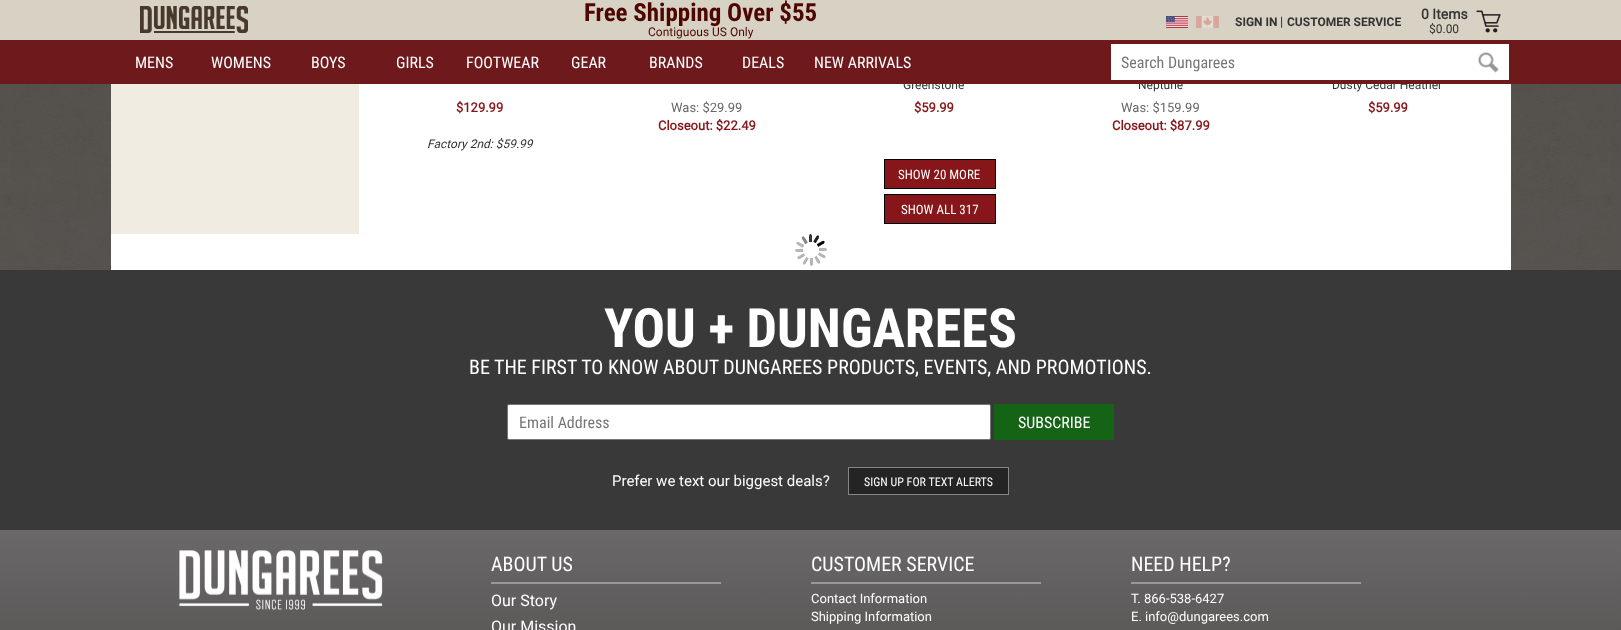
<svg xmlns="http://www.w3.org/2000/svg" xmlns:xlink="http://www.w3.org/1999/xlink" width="1621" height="630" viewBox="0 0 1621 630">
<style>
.cls-1{font:bold 25px Roboto Condensed;fill:#4d0601}
.cls-2{font:12px Roboto;fill:#4d0601}
.cls-3{font:bold 12px 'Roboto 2';fill:#333333}
.cls-4{font:13px Roboto;fill:#333333}
.cls-5{font:bold 14px Roboto;fill:#333333}
.cls-6{font:12px Roboto;fill:#333333}
.cls-7{font:bold 13px Roboto;fill:#861619}
.cls-8{font:13px Roboto;fill:#666666}
.cls-9{font:16px Roboto Condensed;fill:#757575}
.cls-10{font:16px Roboto Condensed;fill:#ffffff}
.cls-11{font:italic 12px Roboto;fill:#333333}
.cls-12{font:13px Roboto Condensed;fill:#ffffff}
.cls-13{font:bold 54px Roboto Condensed;fill:#ffffff}
.cls-14{font:20px Roboto Condensed;fill:#ffffff}
.cls-15{font:15px Roboto;fill:#ffffff}
.cls-16{font:12px Roboto Condensed;fill:#ffffff}
.cls-17{font:16px Roboto;fill:#ffffff}
.cls-18{font:13px Roboto;fill:#ffffff}
</style>
<defs>
<linearGradient id="g1" gradientUnits="userSpaceOnUse" x1="811" y1="530" x2="811" y2="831"><stop offset="0" stop-color="#6a6868"/><stop offset="1" stop-color="#403e3c"/></linearGradient>
</defs>
<rect width="100%" height="100%" fill="#56524f"/>
<image xlink:href="image0.png" x="0" y="84" width="1620" height="186"/>
<rect fill="#d8d2c5" x="0" y="0" width="1621" height="40"/>
<image xlink:href="image1.png" x="140" y="6" width="108" height="27"/>
<image xlink:href="image2.png" x="1166" y="16" width="22" height="12"/>
<image xlink:href="image3.png" x="1196" y="16" width="23" height="12"/>
<image xlink:href="image4.png" x="1476" y="10" width="25" height="23"/>
<rect fill="#ffffff" x="111" y="84" width="1400" height="186"/>
<rect fill="#f0ece1" x="111" y="84" width="248" height="150"/>
<rect fill="#861619" stroke="#000000" x="884.5" y="159.5" width="111" height="29"/>
<rect fill="#861619" stroke="#000000" x="884.5" y="194.5" width="111" height="29"/>
<image xlink:href="image6.png" x="795" y="234" width="32" height="32"/>
<rect fill="#393939" x="0" y="270" width="1621" height="260"/>
<rect fill="#ffffff" stroke="#767676" x="507.5" y="404.5" width="483" height="35" rx="1.5"/>
<rect fill="#156415" x="994" y="404" width="120" height="36"/>
<rect fill="#242424" stroke="#868686" x="848.5" y="467.5" width="160" height="27"/>
<rect fill="url(#g1)" x="0" y="530" width="1621" height="100"/>
<image xlink:href="image7.png" x="179" y="550" width="204" height="60"/>
<rect fill="#999999" x="491" y="582" width="230" height="2"/>
<rect fill="#999999" x="811" y="582" width="230" height="2"/>
<rect fill="#999999" x="1131" y="582" width="230" height="2"/>
<text class="cls-1" x="584" y="21">Free Shipping Over $55</text>
<text class="cls-2" x="648" y="36">Contiguous US Only</text>
<text class="cls-3" x="1235" y="26">SIGN IN</text>
<text class="cls-4" x="1280" y="26">|</text>
<text class="cls-3" x="1287" y="26">CUSTOMER SERVICE</text>
<text class="cls-5" x="1421" y="19">0 Items</text>
<text class="cls-6" x="1429" y="33">$0.00</text>
<text class="cls-6" x="903" y="89">Greenstone</text>
<text class="cls-7" x="914" y="112">$59.99</text>
<text class="cls-6" x="1138" y="89">Neptune</text>
<text class="cls-8" x="1121" y="112">Was: $159.99</text>
<text class="cls-7" x="1112" y="130">Closeout: $87.99</text>
<text class="cls-6" x="1332" y="89">Dusty Cedar Heather</text>
<rect fill="#6e191c" x="0" y="40" width="1621" height="44"/>
<rect fill="#ffffff" x="1111" y="44" width="398" height="36"/>
<image xlink:href="image5.png" x="1478" y="52" width="21" height="21"/>
<text class="cls-9" x="1121" y="68">Search Dungarees</text>
<text class="cls-10" x="814" y="68">NEW ARRIVALS</text>
<text class="cls-10" x="742" y="68">DEALS</text>
<text class="cls-10" x="649" y="68">BRANDS</text>
<text class="cls-10" x="571" y="68">GEAR</text>
<text class="cls-10" x="466" y="68">FOOTWEAR</text>
<text class="cls-10" x="396" y="68">GIRLS</text>
<text class="cls-10" x="311" y="68">BOYS</text>
<text class="cls-10" x="211" y="68">WOMENS</text>
<text class="cls-10" x="135" y="68">MENS</text>
<text class="cls-7" x="1368" y="112">$59.99</text>
<text class="cls-7" x="456" y="112">$129.99</text>
<text class="cls-11" x="427" y="148">Factory 2nd: $59.99</text>
<text class="cls-8" x="671" y="112">Was: $29.99</text>
<text class="cls-7" x="658" y="130">Closeout: $22.49</text>
<text class="cls-12" x="898" y="179">SHOW 20 MORE</text>
<text class="cls-12" x="901" y="214">SHOW ALL 317</text>
<text class="cls-13" x="604" y="347">YOU + DUNGAREES</text>
<text class="cls-14" x="469" y="374">BE THE FIRST TO KNOW ABOUT DUNGAREES PRODUCTS, EVENTS, AND PROMOTIONS.</text>
<text class="cls-9" x="519" y="428">Email Address</text>
<text class="cls-10" x="1018" y="428">SUBSCRIBE</text>
<text class="cls-15" x="612" y="486">Prefer we text our biggest deals?</text>
<text class="cls-16" x="864" y="486">SIGN UP FOR TEXT ALERTS</text>
<text class="cls-14" x="491" y="571">ABOUT US</text>
<text class="cls-17"><tspan x="491" y="606">Our Story</tspan><tspan x="491" y="632">Our Mission</tspan></text>
<text class="cls-14" x="811" y="571">CUSTOMER SERVICE</text>
<text class="cls-18"><tspan x="811" y="603">Contact Information</tspan><tspan x="811" y="621">Shipping Information</tspan></text>
<text class="cls-14" x="1131" y="571">NEED HELP?</text>
<text class="cls-18"><tspan x="1131" y="603">T. 866-538-6427</tspan><tspan x="1131" y="621">E. info@dungarees.com</tspan></text>
</svg>
